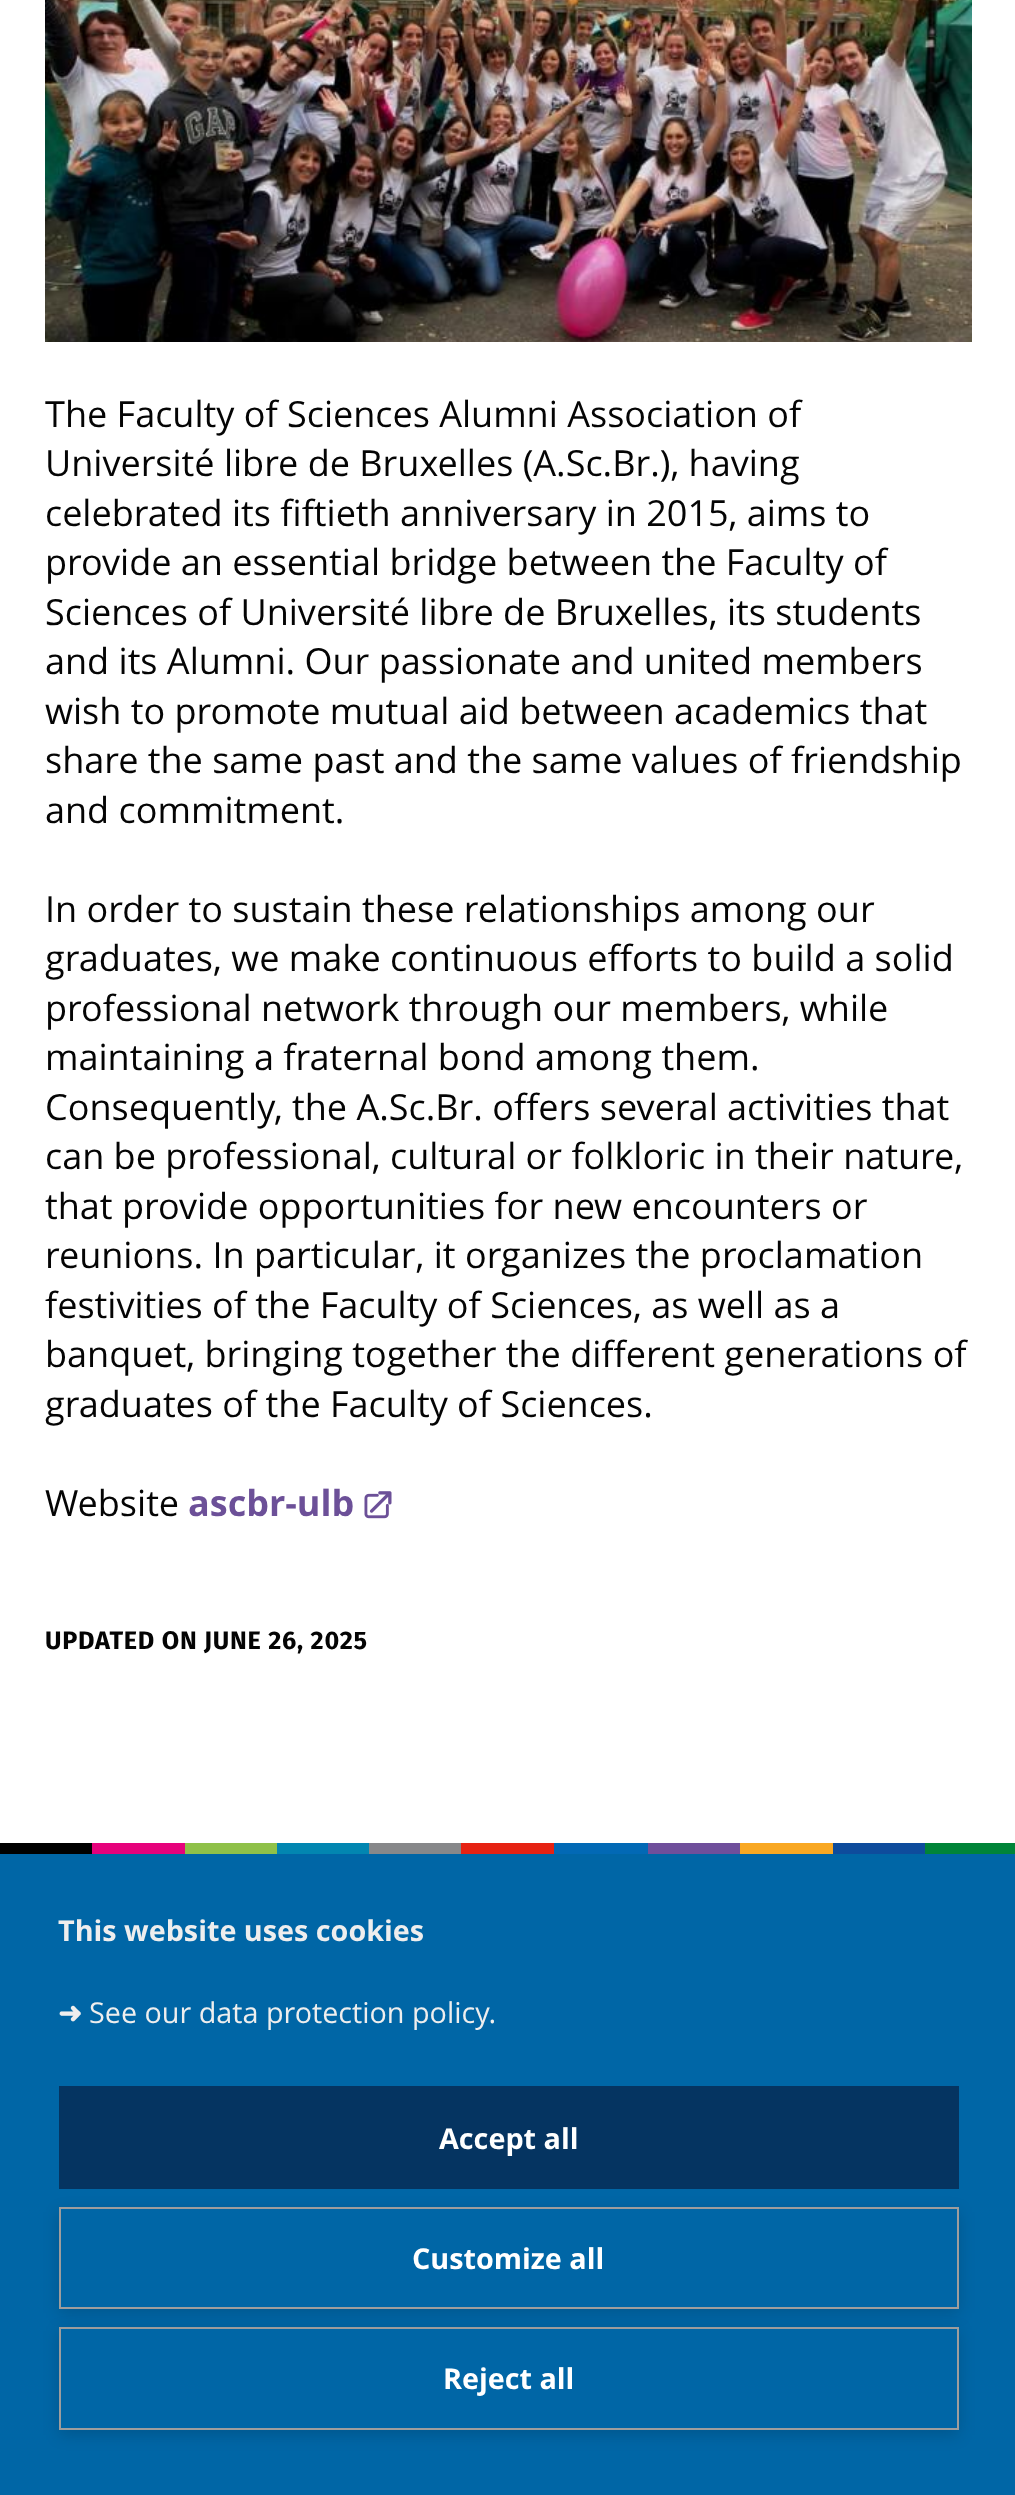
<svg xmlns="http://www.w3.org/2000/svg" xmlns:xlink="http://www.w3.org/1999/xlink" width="1015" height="2495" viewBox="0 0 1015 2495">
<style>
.cls-1{font:36px Open Sans;fill:#040404}
.cls-2{font:bold 36px Open Sans;fill:#6c5098}
.cls-3{font:bold 25.25px Fira Sans;letter-spacing:0.75px;fill:#040404}
.cls-4{font:bold 28.75px Open Sans;fill:#eeeeee}
.cls-5{font:bold 28.75px DejaVu Sans;fill:#eeeeee}
.cls-6{font:28.75px Open Sans;fill:#eeeeee}
.cls-7{font:bold 28.75px Open Sans;fill:#ffffff}
</style>
<defs>
<clipPath id="clip1"><path d="M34 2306H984V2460H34ZM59 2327H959V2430H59Z" clip-rule="evenodd"/></clipPath>
<clipPath id="clip2"><path d="M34 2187H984V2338H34ZM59 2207H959V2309H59Z" clip-rule="evenodd"/></clipPath>
</defs>
<rect width="100%" height="100%" fill="#ffffff"/>
<image xlink:href="image0.png" x="45" y="0" width="927" height="342"/>
<image xlink:href="image1.png" x="364" y="1491" width="28" height="28"/>
<rect fill="#000000" x="0" y="1843" width="92" height="11"/>
<rect fill="#e6027c" x="92" y="1843" width="93" height="11"/>
<rect fill="#8fc149" x="185" y="1843" width="92" height="11"/>
<rect fill="#0286b1" x="277" y="1843" width="92" height="11"/>
<rect fill="#87888a" x="369" y="1843" width="92" height="11"/>
<rect fill="#e62213" x="461" y="1843" width="93" height="11"/>
<rect fill="#0269b5" x="554" y="1843" width="94" height="11"/>
<rect fill="#6f4f9b" x="648" y="1843" width="92" height="11"/>
<rect fill="#f9a823" x="740" y="1843" width="93" height="11"/>
<rect fill="#0e4c9c" x="833" y="1843" width="92" height="11"/>
<rect fill="#008438" x="925" y="1843" width="90" height="11"/>
<rect fill="#0066a6" x="0" y="1854" width="1015" height="641"/>
<rect fill="#053461" x="59" y="2086" width="900" height="103"/>
<g clip-path="url(#clip1)">
<rect fill="#000000" fill-opacity="0.15" filter="blur(8px)" x="59" y="2331" width="900" height="104"/>
</g>
<rect fill="none" stroke="#9e9d9d" stroke-width="2" x="60" y="2328" width="898" height="101"/>
<g clip-path="url(#clip2)">
<rect fill="#000000" fill-opacity="0.15" filter="blur(8px)" x="59" y="2212" width="900" height="101"/>
</g>
<rect fill="none" stroke="#9e9d9d" stroke-width="2" x="60" y="2208" width="898" height="100"/>
<text class="cls-1"><tspan x="45" y="427">The Faculty of Sciences Alumni Association of</tspan><tspan x="45" y="476">Université libre de Bruxelles (A.Sc.Br.), having</tspan><tspan x="45" y="526">celebrated its fiftieth anniversary in 2015, aims to</tspan><tspan x="45" y="575">provide an essential bridge between the Faculty of</tspan><tspan x="45" y="625">Sciences of Université libre de Bruxelles, its students</tspan><tspan x="45" y="674">and its Alumni. Our passionate and united members</tspan><tspan x="45" y="724">wish to promote mutual aid between academics that</tspan><tspan x="45" y="773">share the same past and the same values of friendship</tspan><tspan x="45" y="823">and commitment.</tspan></text>
<text class="cls-1"><tspan x="45" y="922">In order to sustain these relationships among our</tspan><tspan x="45" y="971">graduates, we make continuous efforts to build a solid</tspan><tspan x="45" y="1021">professional network through our members, while</tspan><tspan x="45" y="1070">maintaining a fraternal bond among them.</tspan><tspan x="45" y="1120">Consequently, the A.Sc.Br. offers several activities that</tspan><tspan x="45" y="1169">can be professional, cultural or folkloric in their nature,</tspan><tspan x="45" y="1219">that provide opportunities for new encounters or</tspan><tspan x="45" y="1268">reunions. In particular, it organizes the proclamation</tspan><tspan x="45" y="1318">festivities of the Faculty of Sciences, as well as a</tspan><tspan x="45" y="1367">banquet, bringing together the different generations of</tspan><tspan x="45" y="1417">graduates of the Faculty of Sciences.</tspan></text>
<text class="cls-1" x="45" y="1516">Website</text>
<text class="cls-2" x="188" y="1516">ascbr-ulb</text>
<text class="cls-3" x="45" y="1649">UPDATED ON JUNE 26, 2025</text>
<text class="cls-4" x="58" y="1941">This website uses cookies</text>
<text class="cls-5" x="58" y="2023">➜</text>
<text class="cls-6" x="89" y="2023">See our data protection policy.</text>
<text class="cls-7" x="439" y="2149">Accept all</text>
<text class="cls-7" x="412" y="2269">Customize all</text>
<text class="cls-7" x="443" y="2389">Reject all</text>
</svg>
